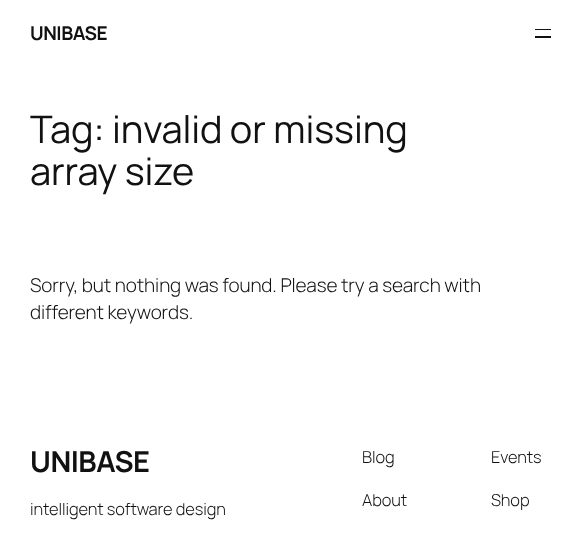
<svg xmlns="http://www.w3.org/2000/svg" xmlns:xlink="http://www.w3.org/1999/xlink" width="585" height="537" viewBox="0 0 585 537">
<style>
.cls-1{font:bold 19px Manrope;letter-spacing:-0.5px;fill:#111111}
.cls-2{font:38px Manrope;letter-spacing:-0.1px;fill:#111111}
.cls-3{font:300 19px Manrope;letter-spacing:-0.1px;fill:#111111}
.cls-4{font:bold 29px Manrope;letter-spacing:-0.5px;fill:#111111}
.cls-5{font:300 16.5px Manrope;letter-spacing:-0.1px;fill:#111111}
</style>
<rect width="100%" height="100%" fill="#ffffff"/>
<rect fill="#111111" x="535" y="29" width="16" height="1"/>
<rect fill="#111111" x="535" y="36" width="16" height="2"/>
<text class="cls-1" x="30" y="40">UNIBASE</text>
<text class="cls-2"><tspan x="30" y="143">Tag: invalid or missing</tspan><tspan x="30" y="185">array size</tspan></text>
<text class="cls-3"><tspan x="30" y="292">Sorry, but nothing was found. Please try a search with</tspan><tspan x="30" y="319">different keywords.</tspan></text>
<text class="cls-4" x="30" y="472">UNIBASE</text>
<text class="cls-5" x="30" y="515">intelligent software design</text>
<text class="cls-5" x="362" y="463">Blog</text>
<text class="cls-5" x="362" y="506">About</text>
<text class="cls-5" x="491" y="463">Events</text>
<text class="cls-5" x="491" y="506">Shop</text>
</svg>
